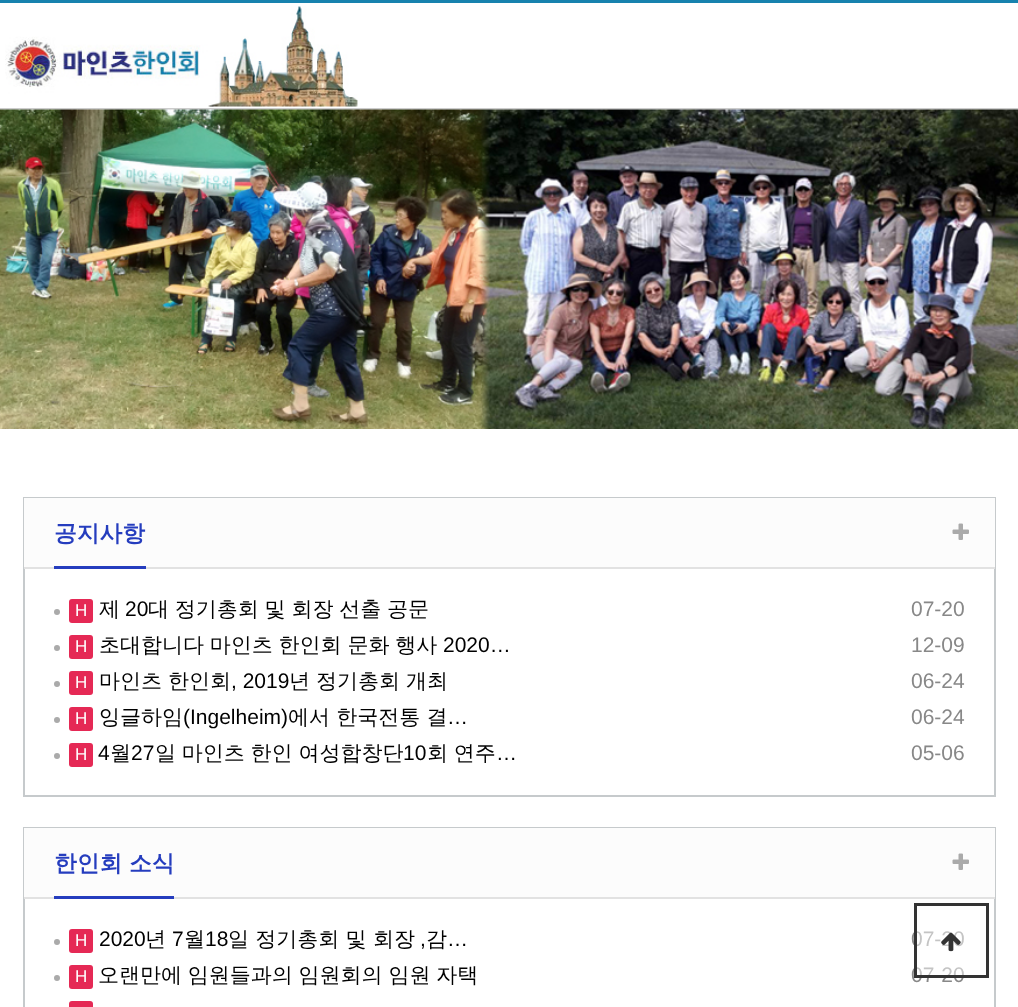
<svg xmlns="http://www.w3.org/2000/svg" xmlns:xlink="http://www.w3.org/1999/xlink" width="1018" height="1007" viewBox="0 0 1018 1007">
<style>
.cls-1{font:bold 22.75px WenQuanYi Zen Hei;fill:#253dbe}
.cls-2{font:17px Liberation Sans;fill:#ffffff}
.cls-3{font:500 21px WenQuanYi Zen Hei;fill:#000000}
.cls-4{font:21px Liberation Sans;fill:#000000}
.cls-5{font:21px Liberation Sans;fill:#888888}
</style>
<rect width="100%" height="100%" fill="#ffffff"/>
<rect fill="#1782ae" x="0" y="0" width="1018" height="3"/>
<rect fill="#cccccc" x="0" y="108" width="1018" height="2"/>
<image xlink:href="image0.png" x="5" y="6" width="353" height="101"/>
<image xlink:href="image1.png" x="0" y="109" width="1018" height="320"/>
<rect fill="none" stroke="#c6cacc" stroke-width="2" x="24" y="498" width="971" height="298"/>
<rect fill="#fcfcfc" x="24" y="498" width="971" height="69"/>
<rect fill="#e2e2e2" x="24" y="567" width="971" height="2"/>
<rect fill="#253dbe" x="54" y="566" width="92" height="3"/>
<image xlink:href="image2.png" x="952" y="523" width="17" height="17"/>
<circle fill="#aaaaaa" cx="57" cy="612" r="3"/>
<rect fill="#e52955" x="69" y="599" width="24" height="24" rx="3"/>
<circle fill="#aaaaaa" cx="57" cy="648" r="3"/>
<rect fill="#e52955" x="69" y="635" width="24" height="24" rx="3"/>
<circle fill="#aaaaaa" cx="57" cy="684" r="3"/>
<rect fill="#e52955" x="69" y="671" width="24" height="24" rx="3"/>
<circle fill="#aaaaaa" cx="57" cy="720" r="3"/>
<rect fill="#e52955" x="69" y="707" width="24" height="24" rx="3"/>
<circle fill="#aaaaaa" cx="57" cy="756" r="3"/>
<rect fill="#e52955" x="69" y="743" width="24" height="24" rx="3"/>
<rect fill="none" stroke="#c6cacc" stroke-width="2" x="24" y="828" width="971" height="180"/>
<rect fill="#fcfcfc" x="24" y="828" width="971" height="69"/>
<rect fill="#e2e2e2" x="24" y="897" width="971" height="2"/>
<rect fill="#253dbe" x="54" y="896" width="120" height="3"/>
<image xlink:href="image2.png" x="952" y="853" width="17" height="17"/>
<circle fill="#aaaaaa" cx="57" cy="942" r="3"/>
<rect fill="#e52955" x="69" y="929" width="24" height="24" rx="3"/>
<circle fill="#aaaaaa" cx="57" cy="978" r="3"/>
<rect fill="#e52955" x="69" y="965" width="24" height="24" rx="3"/>
<rect fill="#e52955" x="69" y="1001" width="24" height="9" rx="3"/>
<text class="cls-1" x="54" y="541">공지사항</text>
<text class="cls-2" x="75" y="616">H</text>
<text class="cls-3" x="99" y="616">제</text>
<text class="cls-4" x="125" y="616">20</text>
<text class="cls-3" x="148" y="616" word-spacing="-0.5">대 정기총회 및 회장 선출 공문</text>
<text class="cls-5" x="911" y="616">07-20</text>
<text class="cls-2" x="75" y="652">H</text>
<text class="cls-3" x="99" y="652" word-spacing="-0.5">초대합니다 마인츠 한인회 문화 행사</text>
<text class="cls-4" x="443" y="652">2020…</text>
<text class="cls-5" x="911" y="652">12-09</text>
<text class="cls-2" x="75" y="688">H</text>
<text class="cls-3" x="99" y="688">마인츠</text>
<text class="cls-3" x="168" y="688">한인회</text>
<text class="cls-4" x="231" y="688">, 2019</text>
<text class="cls-3" x="289" y="688">년</text>
<text class="cls-3" x="316" y="688">정기총회</text>
<text class="cls-3" x="406" y="688">개최</text>
<text class="cls-5" x="911" y="688">06-24</text>
<text class="cls-2" x="75" y="724">H</text>
<text class="cls-3" x="99" y="724">잉글하임</text>
<text class="cls-4" x="183" y="724">(Ingelheim)</text>
<text class="cls-3" x="288" y="724">에서 한국전통 결</text>
<text class="cls-4" x="447" y="724">…</text>
<text class="cls-5" x="911" y="724">06-24</text>
<text class="cls-2" x="75" y="760">H</text>
<text class="cls-4" x="98" y="760">4</text>
<text class="cls-3" x="110" y="760">월</text>
<text class="cls-4" x="131" y="760">27</text>
<text class="cls-3" x="155" y="760" word-spacing="-0.5">일 마인츠 한인 여성합창단</text>
<text class="cls-4" x="403" y="760">10</text>
<text class="cls-3" x="427" y="760" word-spacing="-0.5">회 연주</text>
<text class="cls-4" x="496" y="760">…</text>
<text class="cls-5" x="911" y="760">05-06</text>
<text class="cls-1" x="54" y="871">한인회 소식</text>
<text class="cls-2" x="75" y="946">H</text>
<text class="cls-4" x="99" y="946">2020</text>
<text class="cls-3" x="145" y="946">년</text>
<text class="cls-4" x="172" y="946">7</text>
<text class="cls-3" x="184" y="946">월</text>
<text class="cls-4" x="205" y="946">18</text>
<text class="cls-3" x="228" y="946">일 정기총회 및 회장</text>
<text class="cls-3" x="426" y="946">감</text>
<text class="cls-5" x="911" y="946">07-20</text>
<text class="cls-4" x="420" y="946">,</text>
<text class="cls-4" x="447" y="946">…</text>
<text class="cls-2" x="75" y="982">H</text>
<text class="cls-3" x="98" y="982" word-spacing="-0.5">오랜만에 임원들과의 임원회의 임원 자택</text>
<text class="cls-5" x="911" y="982">07-20</text>
<rect fill="#ffffff" fill-opacity="0.5" x="917" y="931" width="47" height="44"/>
<rect fill="none" stroke="#333333" stroke-width="3" x="915.5" y="904.5" width="72" height="72"/>
<image xlink:href="image3.png" x="941" y="932" width="20" height="20"/>
</svg>
